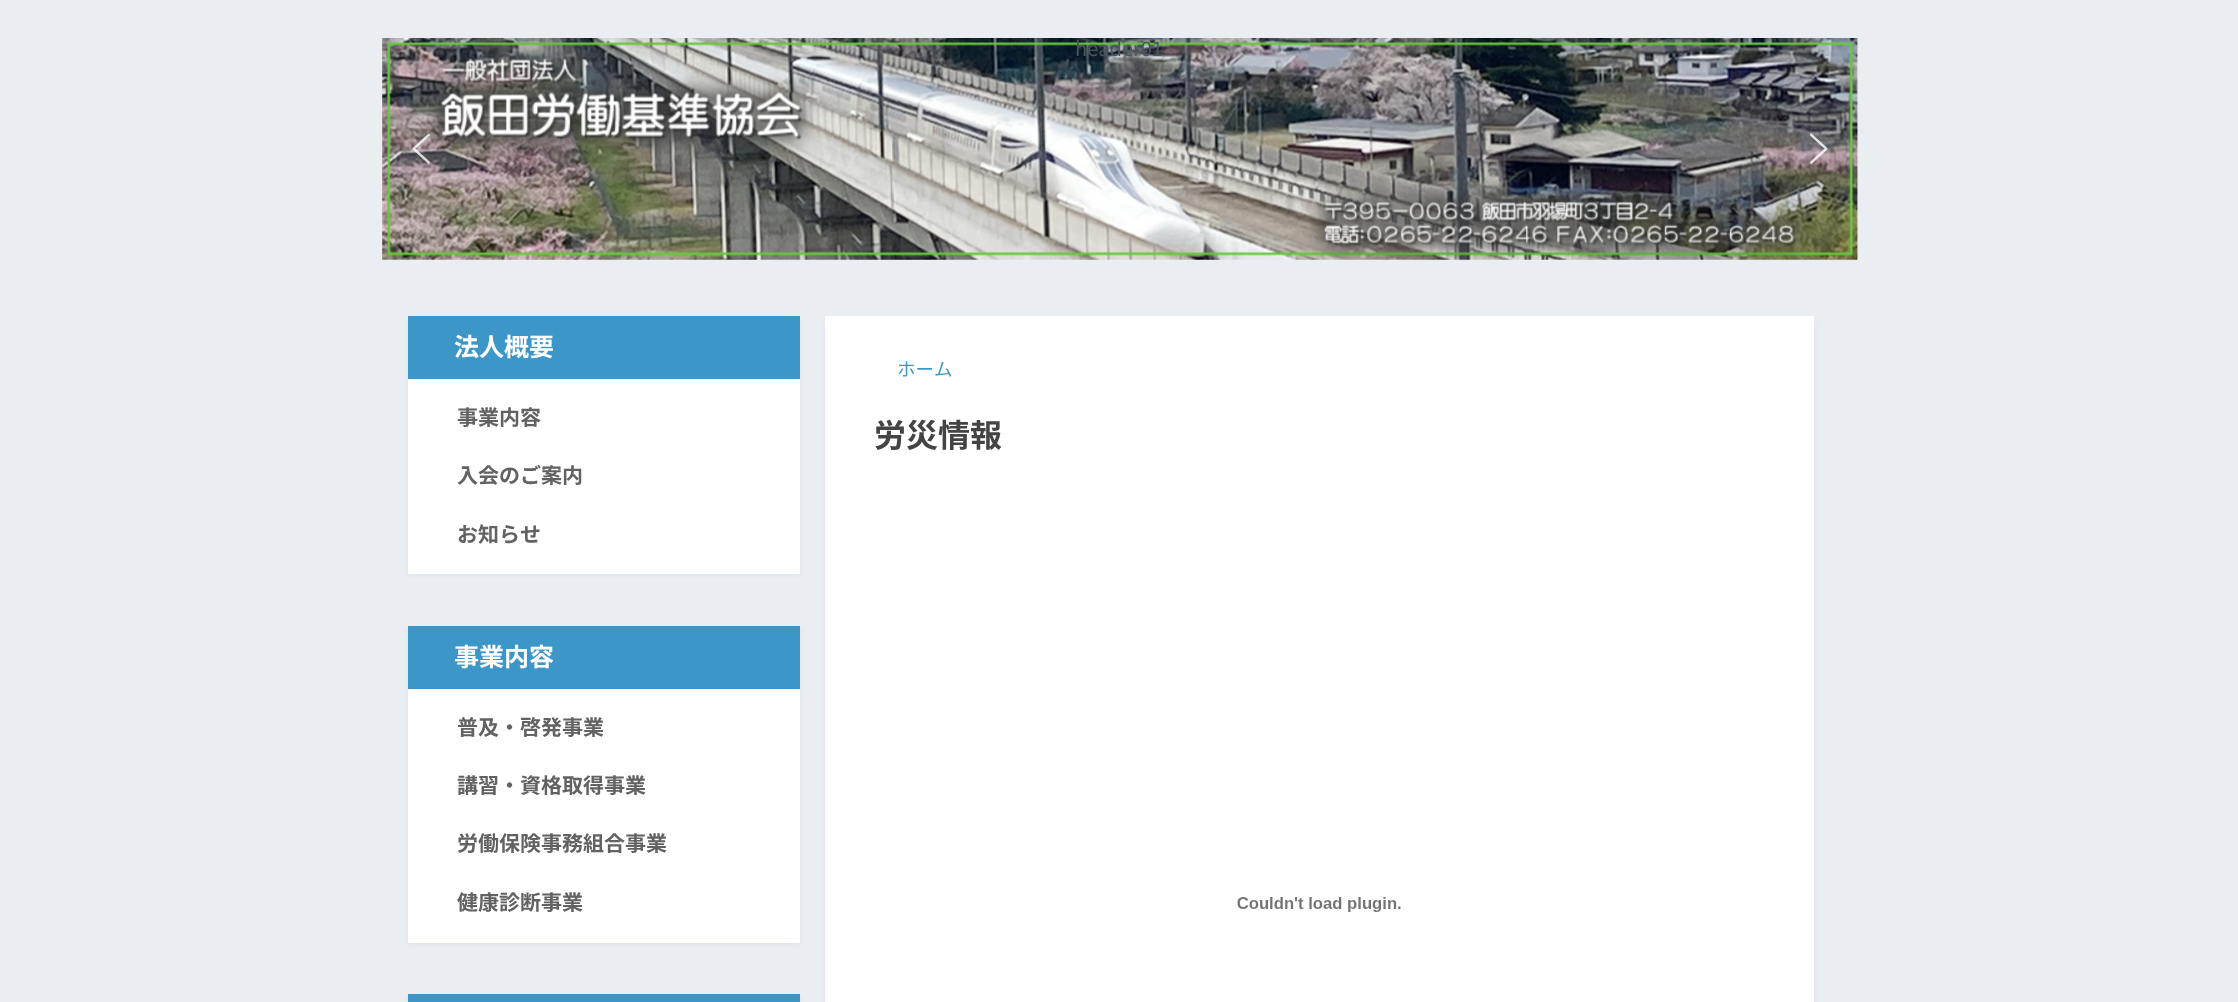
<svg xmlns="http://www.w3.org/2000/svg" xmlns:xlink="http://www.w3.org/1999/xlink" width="2238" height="1002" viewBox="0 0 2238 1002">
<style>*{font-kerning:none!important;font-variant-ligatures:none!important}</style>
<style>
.cls-1{font:20px Noto Sans JP;fill:#485955}
.cls-2{font:bold 25px Noto Sans JP;fill:#ffffff}
.cls-3{font:bold 21px Noto Sans JP;fill:#626262}
.cls-4{font:18.5px Noto Sans JP;fill:#3c96c8}
.cls-5{font:bold 32px Noto Sans JP;fill:#444444}
</style>
<rect width="100%" height="100%" fill="#eaedf2"/>
<image xlink:href="image0.png" x="382" y="38" width="1476" height="222"/>
<image xlink:href="image1.png" x="412" y="133" width="18" height="31"/>
<image xlink:href="image2.png" x="1810" y="133" width="18" height="31"/>
<rect fill="#4385bb" fill-opacity="0.07" filter="blur(2.5px)" x="408" y="319" width="392" height="257"/>
<rect fill="#ffffff" x="408" y="379" width="392" height="195"/>
<rect fill="#3c96c8" x="408" y="316" width="392" height="63"/>
<rect fill="#4385bb" fill-opacity="0.07" filter="blur(2.5px)" x="408" y="629" width="392" height="316"/>
<rect fill="#ffffff" x="408" y="689" width="392" height="254"/>
<rect fill="#3c96c8" x="408" y="626" width="392" height="63"/>
<rect fill="#4385bb" fill-opacity="0.07" filter="blur(2.5px)" x="408" y="996" width="392" height="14"/>
<rect fill="#3c96c8" x="408" y="994" width="392" height="8"/>
<rect fill="#4385bb" fill-opacity="0.07" filter="blur(2.5px)" x="825" y="319" width="989" height="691"/>
<rect fill="#ffffff" x="825" y="316" width="989" height="686"/>
<image xlink:href="image3.png" x="1237" y="897" width="164" height="15"/>
<text class="cls-1" x="1075" y="56">header01</text>
<text class="cls-2" x="454" y="356">法人概要</text>
<text class="cls-3" x="457" y="425">事業内容</text>
<text class="cls-3" x="457" y="483">入会のご案内</text>
<text class="cls-3" x="457" y="542">お知らせ</text>
<text class="cls-2" x="454" y="666">事業内容</text>
<text class="cls-3" x="457" y="735">普及・啓発事業</text>
<text class="cls-3" x="457" y="793">講習・資格取得事業</text>
<text class="cls-3" x="457" y="851">労働保険事務組合事業</text>
<text class="cls-3" x="457" y="910">健康診断事業</text>
<text class="cls-4" x="897" y="376">ホーム</text>
<text class="cls-5" x="874" y="447">労災情報</text>
</svg>
